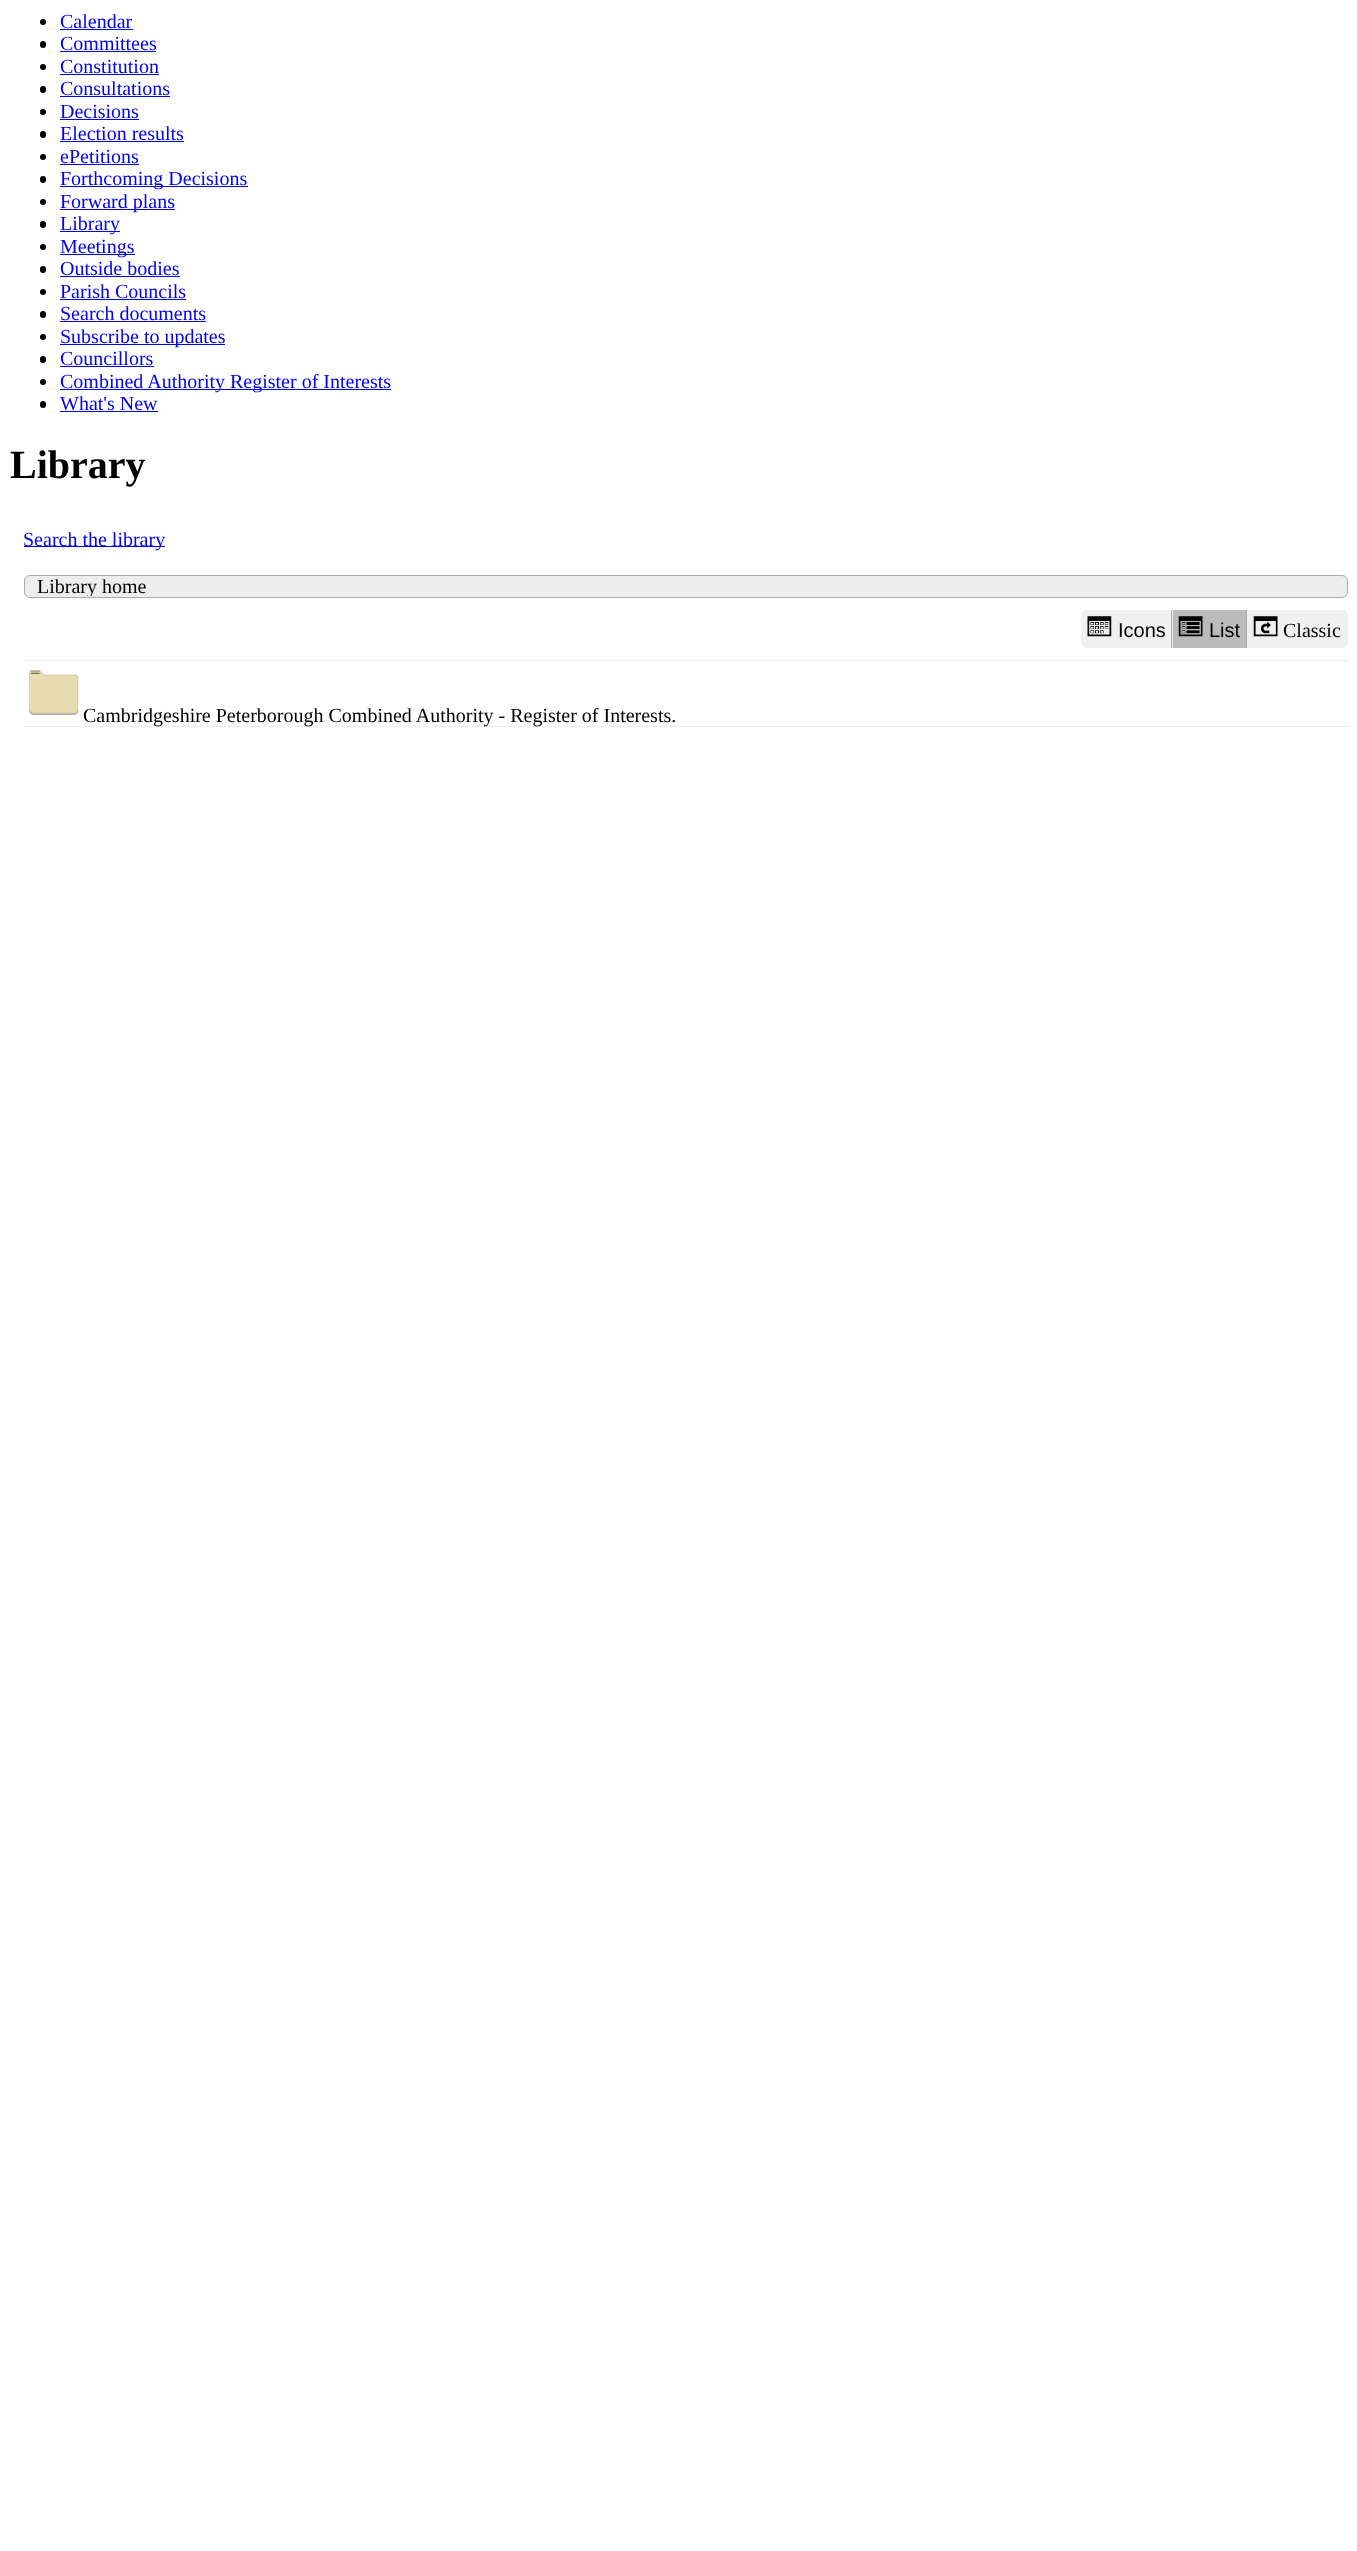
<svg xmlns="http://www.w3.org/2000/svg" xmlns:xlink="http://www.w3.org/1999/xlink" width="1357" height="2551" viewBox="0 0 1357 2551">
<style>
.cls-1{font:20px Liberation Serif;fill:#0000ee}
.cls-2{font:bold 40px Liberation Serif;fill:#000000}
.cls-3{font:20px Liberation Serif;fill:#000000}
.cls-4{font:20px Liberation Sans;fill:#000000}
</style>
<defs>
<clipPath id="clip1"><rect x="25" y="576" width="1321" height="20" rx="5"/></clipPath>
</defs>
<rect width="100%" height="100%" fill="#ffffff"/>
<circle fill="#000000" cx="43" cy="22" r="3"/>
<rect fill="#0000ee" x="60" y="29" width="73" height="1"/>
<rect fill="#000000" x="40" y="41" width="6" height="7" rx="3"/>
<rect fill="#0000ee" x="60" y="51" width="96" height="1"/>
<circle fill="#000000" cx="43" cy="67" r="3"/>
<rect fill="#0000ee" x="60" y="74" width="99" height="1"/>
<rect fill="#000000" x="40" y="86" width="6" height="7" rx="3"/>
<rect fill="#0000ee" x="60" y="96" width="110" height="1"/>
<circle fill="#000000" cx="43" cy="112" r="3"/>
<rect fill="#0000ee" x="60" y="119" width="79" height="1"/>
<rect fill="#000000" x="40" y="131" width="6" height="7" rx="3"/>
<rect fill="#0000ee" x="60" y="141" width="124" height="1"/>
<circle fill="#000000" cx="43" cy="157" r="3"/>
<rect fill="#0000ee" x="60" y="164" width="79" height="1"/>
<rect fill="#000000" x="40" y="176" width="6" height="7" rx="3"/>
<rect fill="#0000ee" x="60" y="186" width="188" height="1"/>
<circle fill="#000000" cx="43" cy="202" r="3"/>
<rect fill="#0000ee" x="60" y="209" width="115" height="1"/>
<rect fill="#000000" x="40" y="221" width="6" height="7" rx="3"/>
<rect fill="#0000ee" x="60" y="231" width="60" height="1"/>
<circle fill="#000000" cx="43" cy="247" r="3"/>
<rect fill="#0000ee" x="60" y="254" width="75" height="1"/>
<rect fill="#000000" x="40" y="266" width="6" height="7" rx="3"/>
<rect fill="#0000ee" x="60" y="276" width="120" height="1"/>
<circle fill="#000000" cx="43" cy="292" r="3"/>
<rect fill="#0000ee" x="60" y="299" width="126" height="1"/>
<rect fill="#000000" x="40" y="311" width="6" height="7" rx="3"/>
<rect fill="#0000ee" x="60" y="321" width="146" height="1"/>
<circle fill="#000000" cx="43" cy="337" r="3"/>
<rect fill="#0000ee" x="60" y="344" width="165" height="1"/>
<rect fill="#000000" x="40" y="356" width="6" height="7" rx="3"/>
<rect fill="#0000ee" x="60" y="366" width="94" height="1"/>
<circle fill="#000000" cx="43" cy="382" r="3"/>
<rect fill="#0000ee" x="60" y="389" width="331" height="1"/>
<rect fill="#000000" x="40" y="401" width="6" height="7" rx="3"/>
<rect fill="#0000ee" x="60" y="411" width="98" height="1"/>
<rect fill="#0000ee" x="24" y="546" width="141" height="1"/>
<rect fill="#ededed" stroke="#aaaaaa" x="24.5" y="575.5" width="1323" height="22" rx="5.5"/>
<path fill="#f0f0f0" d="M1087 610H1173V648H1087C1083.5 648 1081 645.5 1081 642V616C1081 612.5 1083.5 610 1087 610Z"/>
<rect fill="#aaaaaa" x="1171" y="610" width="1" height="38"/>
<image xlink:href="image0.png" x="1087" y="616" width="25" height="21"/>
<rect fill="#bbbbbb" x="1173" y="610" width="73" height="38"/>
<image xlink:href="image1.png" x="1178" y="616" width="25" height="21"/>
<path fill="#f0f0f0" d="M1246 610H1342C1345.5 610 1348 612.5 1348 616V642C1348 645.5 1345.5 648 1342 648H1246Z"/>
<rect fill="#aaaaaa" x="1246" y="610" width="1" height="38"/>
<image xlink:href="image2.png" x="1253" y="616" width="25" height="21"/>
<rect fill="#ededed" x="24" y="660" width="1324" height="1"/>
<rect fill="#ededed" x="24" y="726" width="1324" height="1"/>
<image xlink:href="image3.png" x="29" y="670" width="50" height="45"/>
<text class="cls-1"><tspan x="60" y="28">Calendar</tspan><tspan x="60" y="50">Committees</tspan><tspan x="60" y="73">Constitution</tspan><tspan x="60" y="95">Consultations</tspan><tspan x="60" y="118">Decisions</tspan><tspan x="60" y="140">Election results</tspan><tspan x="60" y="163">ePetitions</tspan><tspan x="60" y="185">Forthcoming Decisions</tspan><tspan x="60" y="208">Forward plans</tspan><tspan x="60" y="230">Library</tspan><tspan x="60" y="253">Meetings</tspan><tspan x="60" y="275">Outside bodies</tspan><tspan x="60" y="298">Parish Councils</tspan><tspan x="60" y="320">Search documents</tspan><tspan x="60" y="343">Subscribe to updates</tspan><tspan x="60" y="365">Councillors</tspan><tspan x="60" y="388">Combined Authority Register of Interests</tspan><tspan x="60" y="410">What's New</tspan></text>
<text class="cls-2" x="10" y="478">Library</text>
<text class="cls-1" x="23" y="546">Search the library</text>
<g clip-path="url(#clip1)">
<text class="cls-3" x="37" y="593">Library home</text>
</g>
<text class="cls-4" x="1118" y="637">Icons</text>
<text class="cls-4" x="1209" y="637">List</text>
<text class="cls-3" x="1283" y="637">Classic</text>
<text class="cls-3" x="83" y="722">Cambridgeshire Peterborough Combined Authority - Register of Interests.</text>
</svg>
